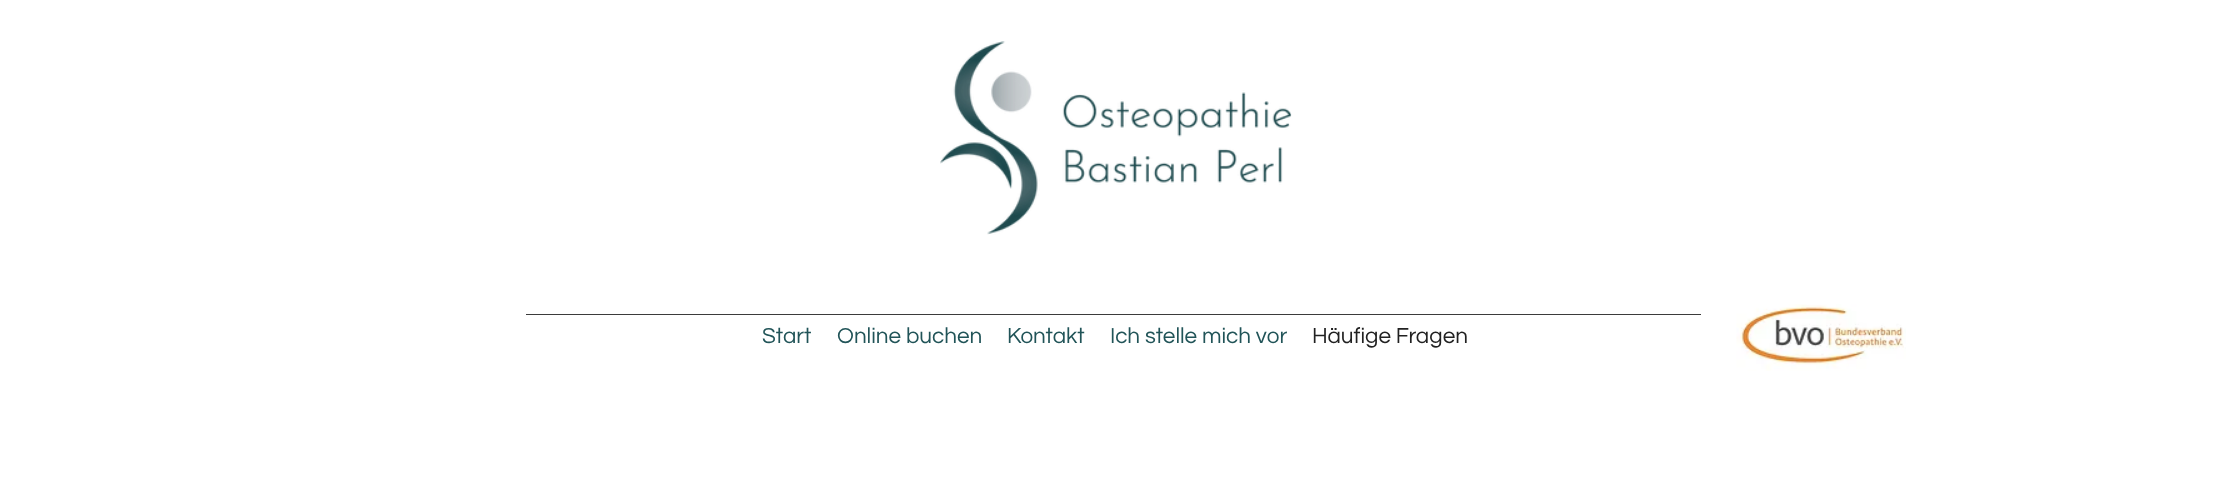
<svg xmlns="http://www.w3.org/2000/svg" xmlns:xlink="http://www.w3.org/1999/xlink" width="2229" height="501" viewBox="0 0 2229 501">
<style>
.cls-1{font:22.5px Questrial;fill:#215458}
.cls-2{font:22.5px Questrial;fill:#212121}
</style>
<rect width="100%" height="100%" fill="#ffffff"/>
<image xlink:href="image0.png" x="940" y="41" width="352" height="194"/>
<rect fill="#3b3b3b" x="526" y="314" width="1175" height="1"/>
<image xlink:href="image1.png" x="1736" y="304" width="170" height="67"/>
<text class="cls-1" x="762" y="343">Start</text>
<text class="cls-1" x="837" y="343">Online buchen</text>
<text class="cls-1" x="1007" y="343">Kontakt</text>
<text class="cls-1" x="1110" y="343">Ich stelle mich vor</text>
<text class="cls-2" x="1312" y="343">Häufige Fragen</text>
</svg>
